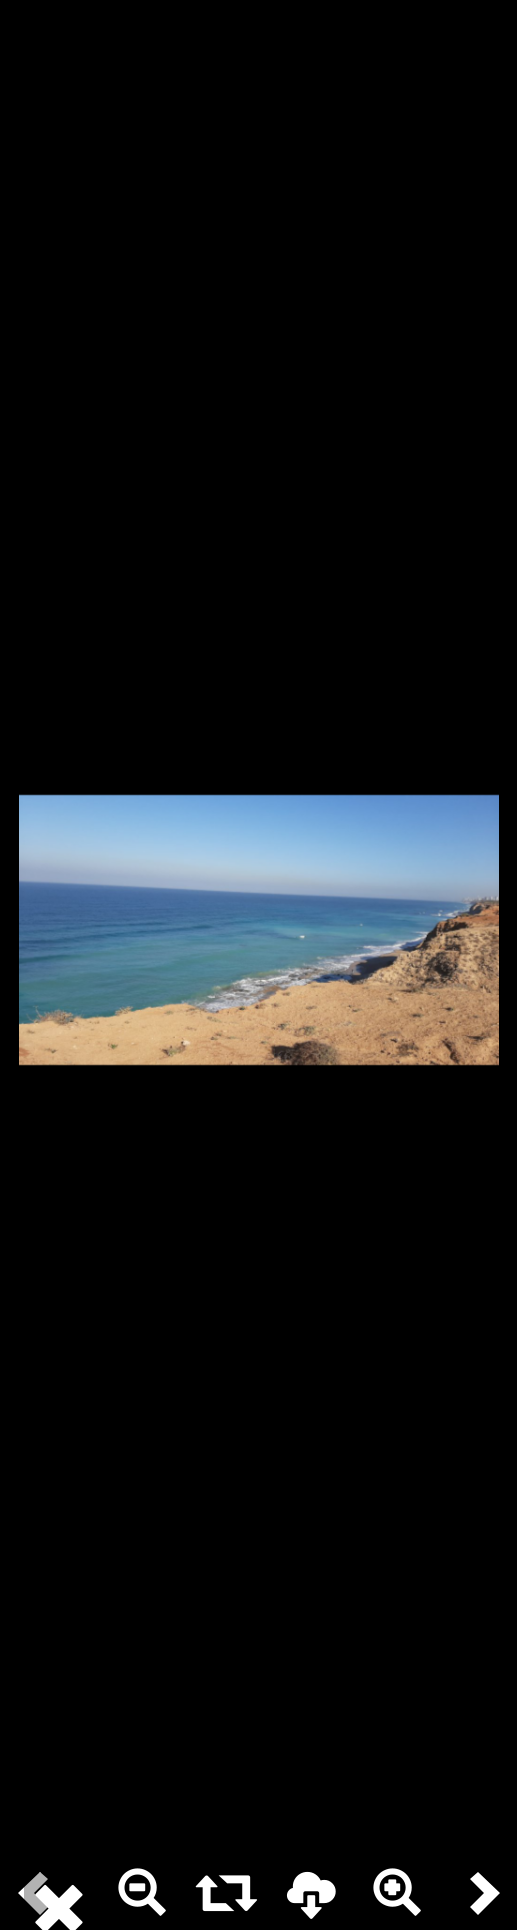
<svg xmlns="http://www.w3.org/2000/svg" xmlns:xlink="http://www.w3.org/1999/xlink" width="517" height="1930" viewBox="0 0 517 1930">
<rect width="100%" height="100%" fill="#000000"/>
<image xlink:href="image0.png" x="19" y="794" width="480" height="272"/>
<path fill="#ffffff" d="M48 1879L34 1893L48 1907L40 1915L18 1893L40 1872Z"/>
<image xlink:href="image1.png" x="118" y="1868" width="48" height="48"/>
<image xlink:href="image2.png" x="286" y="1871" width="50" height="48"/>
<image xlink:href="image3.png" x="373" y="1868" width="48" height="48"/>
<path fill="#ffffff" d="M500 1893L478 1915L470 1907L484 1893L470 1879L478 1872Z"/>
<rect fill="#000000" fill-opacity="0.3" x="24" y="1873" width="24" height="42"/>
<image xlink:href="image4.png" x="35" y="1884" width="48" height="46"/>
<image xlink:href="image5.png" x="195" y="1875" width="63" height="37"/>
</svg>
